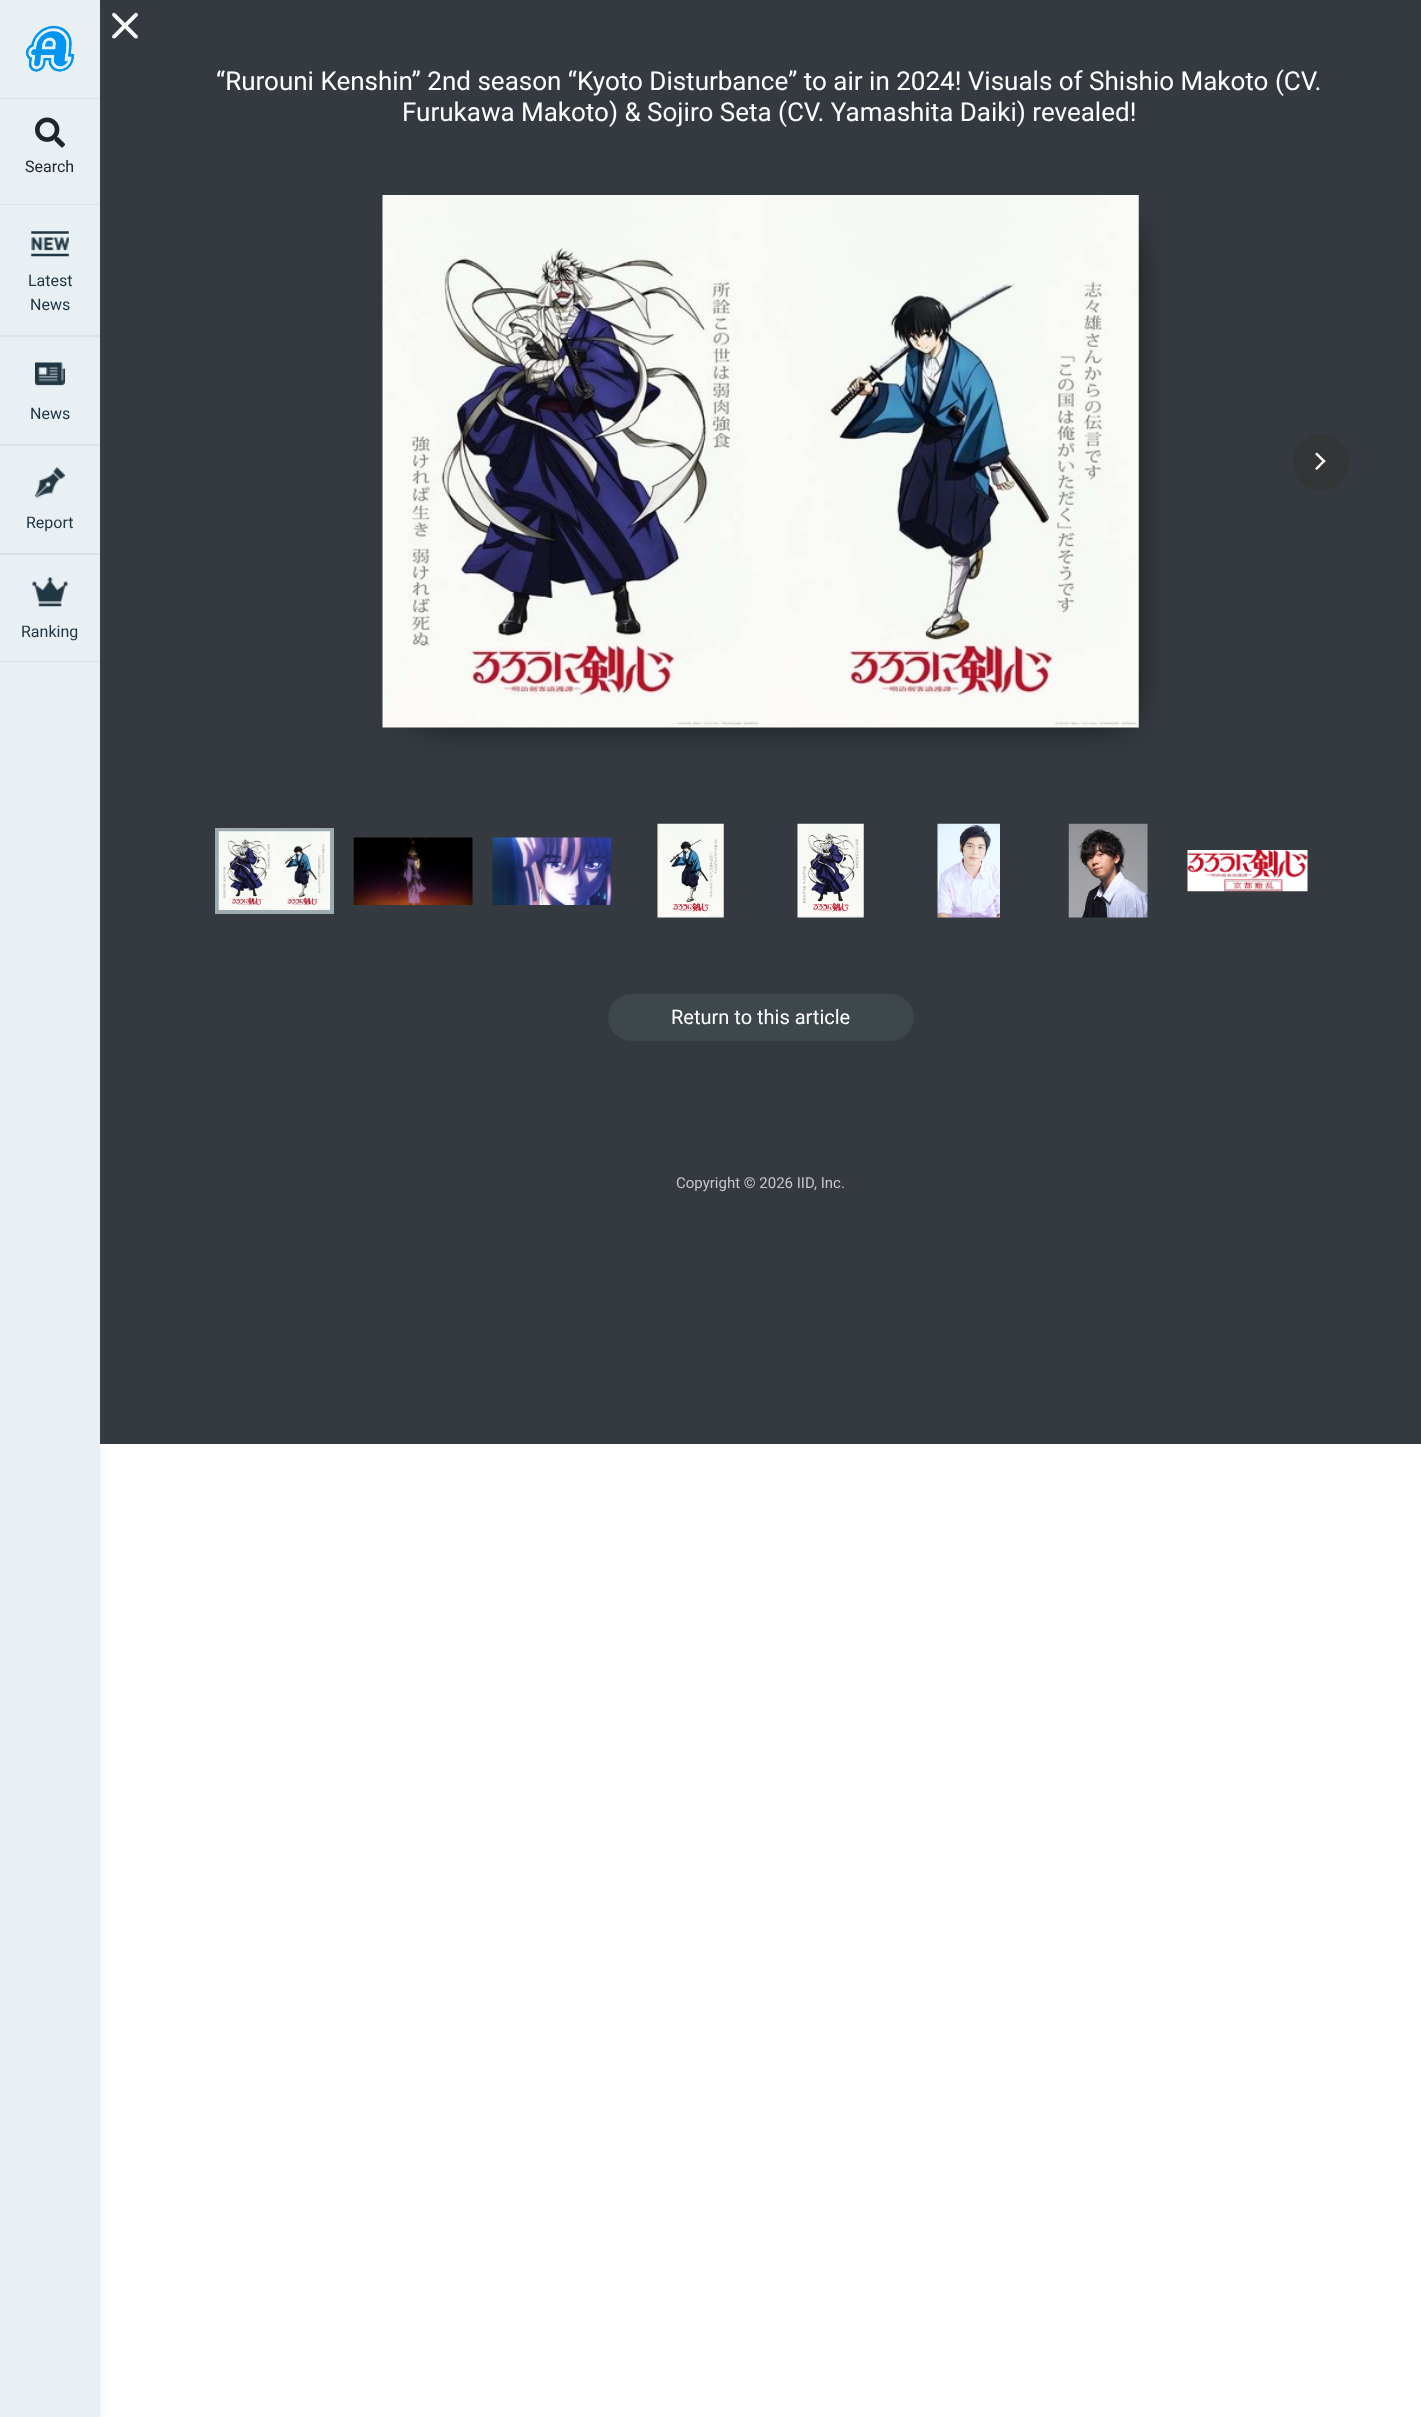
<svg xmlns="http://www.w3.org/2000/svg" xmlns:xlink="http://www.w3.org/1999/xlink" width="1421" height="2417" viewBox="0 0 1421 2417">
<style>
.cls-1{font:16px Roboto;fill:#212529}
.cls-2{font:16px Roboto;fill:#223744}
.cls-3{font:26px Roboto;fill:#ffffff}
.cls-4{font:20px Roboto;fill:#ffffff}
.cls-5{font:15px Roboto;fill:#c6c6c6}
</style>
<rect width="100%" height="100%" fill="#ffffff"/>
<rect fill="#343a40" x="100" y="0" width="1321" height="1444"/>
<path fill="#ffffff" d="M112.5 35.5L134.5 13.5C135.5 12.5 136.5 12.5 137.5 13.5C138 14 138 15 137.5 16L115.5 38C114.5 38.5 113.5 38.5 112.5 38C112 37.5 112 36 112.5 35.5Z"/>
<path fill="#ffffff" d="M115.5 13.5L137.5 35.5C138 36 138 37.5 137.5 38C136.5 38.5 135.5 38.5 134.5 38L112.5 16C112 15 112 14 112.5 13.5C113.5 12.5 114.5 12.5 115.5 13.5Z"/>
<rect fill="#756cfe" fill-opacity="0.12" filter="blur(4px)" x="0" y="4" width="100" height="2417"/>
<rect fill="#e9f0f4" x="0" y="0" width="100" height="2417"/>
<image xlink:href="image0.png" x="25" y="25" width="50" height="47"/>
<rect fill="#dee2e6" x="0" y="98" width="100" height="1"/>
<image xlink:href="image1.png" x="35" y="117" width="30" height="31"/>
<rect fill="#dee2e6" x="0" y="204" width="100" height="1"/>
<rect fill="#dee2e6" x="0" y="335" width="100" height="2"/>
<image xlink:href="image2.png" x="31" y="231" width="38" height="26"/>
<rect fill="#dee2e6" x="0" y="444" width="100" height="2"/>
<image xlink:href="image3.png" x="35" y="362" width="30" height="24"/>
<rect fill="#dee2e6" x="0" y="553" width="100" height="2"/>
<image xlink:href="image4.png" x="35" y="467" width="30" height="31"/>
<rect fill="#dee2e6" x="0" y="661" width="100" height="1"/>
<image xlink:href="image5.png" x="32" y="577" width="36" height="30"/>
<rect fill="#000000" filter="blur(19px)" x="420" y="233" width="706" height="482"/>
<image xlink:href="image6.png" x="382" y="195" width="757" height="533"/>
<circle fill="#333537" cx="1321" cy="462" r="28"/>
<path fill="#ffffff" d="M1317 452.5L1325.5 461L1324 463L1315 454Z"/>
<path fill="#ffffff" d="M1324 459.5L1325.5 461L1317 470L1315 468.5Z"/>
<rect fill="none" stroke="#9eacb2" stroke-width="4" x="217" y="830" width="115" height="82"/>
<image xlink:href="image7.png" x="218" y="831" width="112" height="79"/>
<image xlink:href="image8.png" x="353" y="837" width="120" height="68"/>
<image xlink:href="image9.png" x="492" y="837" width="120" height="68"/>
<image xlink:href="image10.png" x="657" y="823" width="67" height="95"/>
<image xlink:href="image11.png" x="797" y="823" width="67" height="95"/>
<image xlink:href="image12.png" x="937" y="823" width="63" height="95"/>
<image xlink:href="image13.png" x="1068" y="823" width="80" height="95"/>
<image xlink:href="image14.png" x="1187" y="850" width="121" height="42"/>
<rect fill="#3e474b" stroke="#3e474b" x="608.5" y="994.5" width="305" height="46" rx="23"/>
<text class="cls-1" x="25" y="172">Search</text>
<text class="cls-2" x="28" y="286">Latest</text>
<text class="cls-2" x="30" y="310">News</text>
<text class="cls-2" x="30" y="419">News</text>
<text class="cls-2" x="26" y="528">Report</text>
<text class="cls-2" x="21" y="637">Ranking</text>
<text class="cls-3" x="216" y="90">“Rurouni Kenshin” 2nd season “Kyoto Disturbance” to air in 2024! Visuals of Shishio Makoto (CV.</text>
<text class="cls-3" x="402" y="121">Furukawa Makoto) &amp; Sojiro Seta (CV. Yamashita Daiki) revealed!</text>
<text class="cls-4" x="671" y="1024">Return to this article</text>
<text class="cls-5" x="676" y="1188">Copyright © 2026 IID, Inc.</text>
</svg>
